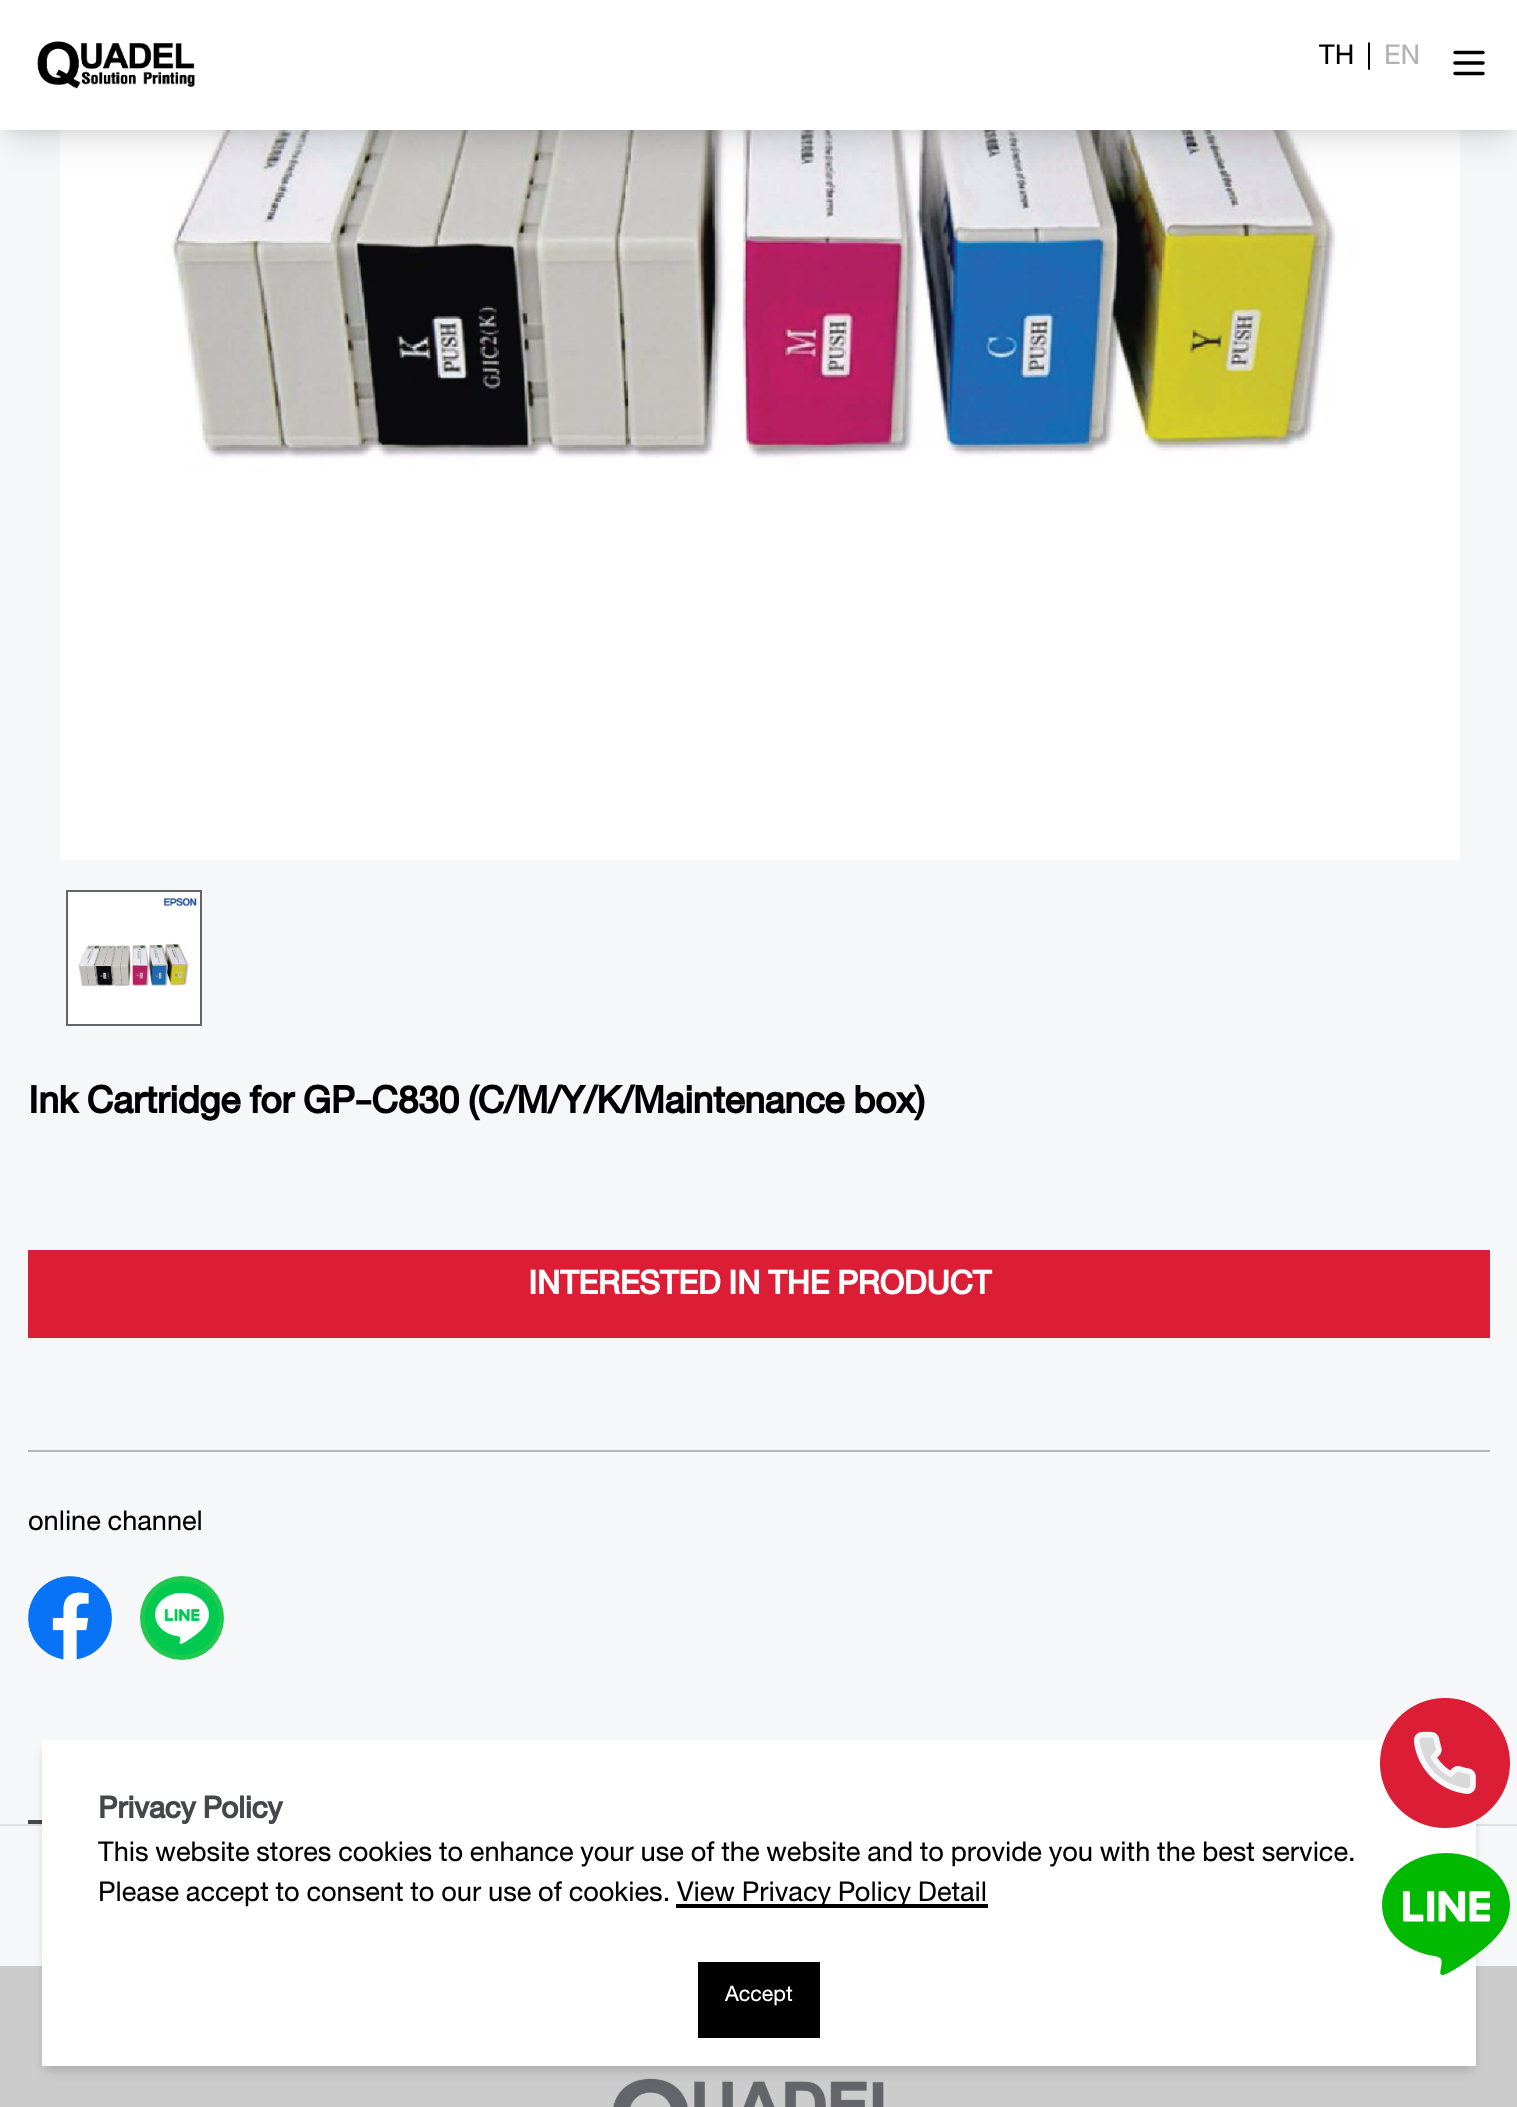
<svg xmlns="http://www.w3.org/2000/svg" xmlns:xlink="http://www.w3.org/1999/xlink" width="1517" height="2107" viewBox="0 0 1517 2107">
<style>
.cls-1{font:40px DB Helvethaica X;fill:#000000}
.cls-2{font:40px DB Helvethaica X;fill:#b3b3b3}
.cls-3{font:bold 54px DB Helvethaica X;fill:#000000}
.cls-4{font:bold 47px DB Helvethaica X;fill:#ffffff}
.cls-5{font:bold 43.5px DB Helvethaica X;fill:#45474a}
.cls-6{font:31.5px DB Helvethaica X;fill:#ffffff}
</style>
<rect width="100%" height="100%" fill="#f6f7f8"/>
<image xlink:href="image1.png" x="60" y="130" width="1400" height="730"/>
<rect fill="#000000" fill-opacity="0.1" filter="blur(6px)" x="8" y="16" width="1502" height="114"/>
<rect fill="#000000" fill-opacity="0.1" filter="blur(15px)" x="6" y="26" width="1506" height="118"/>
<rect fill="#ffffff" x="0" y="0" width="1517" height="130"/>
<image xlink:href="image0.png" x="37" y="41" width="158" height="48"/>
<path fill="none" stroke="#000000" stroke-width="3.5" stroke-linecap="round" stroke-linejoin="round" d="M1455 52.5H1483M1455 63H1483M1455 73.5H1483"/>
<rect fill="none" stroke="#63656a" stroke-width="2" x="67" y="891" width="134" height="134"/>
<image xlink:href="image2.png" x="68" y="892" width="132" height="132"/>
<rect fill="#db1e36" x="28" y="1250" width="1462" height="88"/>
<rect fill="#b5b6b9" x="28" y="1450" width="1462" height="2"/>
<image xlink:href="image3.png" x="28" y="1576" width="84" height="84"/>
<image xlink:href="image4.png" x="140" y="1576" width="84" height="84"/>
<rect fill="#e0e0e0" x="0" y="1824" width="1517" height="2"/>
<rect fill="#45474a" x="28" y="1820" width="14" height="4"/>
<rect fill="#cccccc" x="0" y="1966" width="1517" height="141"/>
<image xlink:href="image7.png" x="613" y="2078" width="271" height="29"/>
<rect fill="#000000" fill-opacity="0.1" filter="blur(4px)" x="46" y="1748" width="1426" height="318"/>
<rect fill="#000000" fill-opacity="0.1" filter="blur(6px)" x="44" y="1750" width="1430" height="322"/>
<rect fill="#ffffff" x="42" y="1740" width="1434" height="326"/>
<image xlink:href="image5.png" x="1380" y="1698" width="130" height="130"/>
<rect fill="#000000" x="676" y="1904" width="312" height="4"/>
<rect fill="#000000" x="698" y="1962" width="122" height="76"/>
<image xlink:href="image6.png" x="1382" y="1853" width="128" height="122"/>
<text class="cls-1" x="1319" y="64">TH</text>
<text class="cls-1" x="1366" y="64">|</text>
<text class="cls-2" x="1384" y="64">EN</text>
<text class="cls-3" x="28" y="1113">Ink Cartridge for GP-C830 (C/M/Y/K/Maintenance box)</text>
<text class="cls-4" x="528" y="1294">INTERESTED IN THE PRODUCT</text>
<text class="cls-1" x="28" y="1530">online channel</text>
<text class="cls-5" x="98" y="1818">Privacy Policy</text>
<text class="cls-1"><tspan x="98" y="1861">This website stores cookies to enhance your use of the website and to provide you with the best service.</tspan><tspan x="98" y="1901">Please accept to consent to our use of cookies.</tspan></text>
<text class="cls-1" x="677" y="1901">View Privacy Policy Detail</text>
<text class="cls-6" x="725" y="2001">Accept</text>
</svg>
